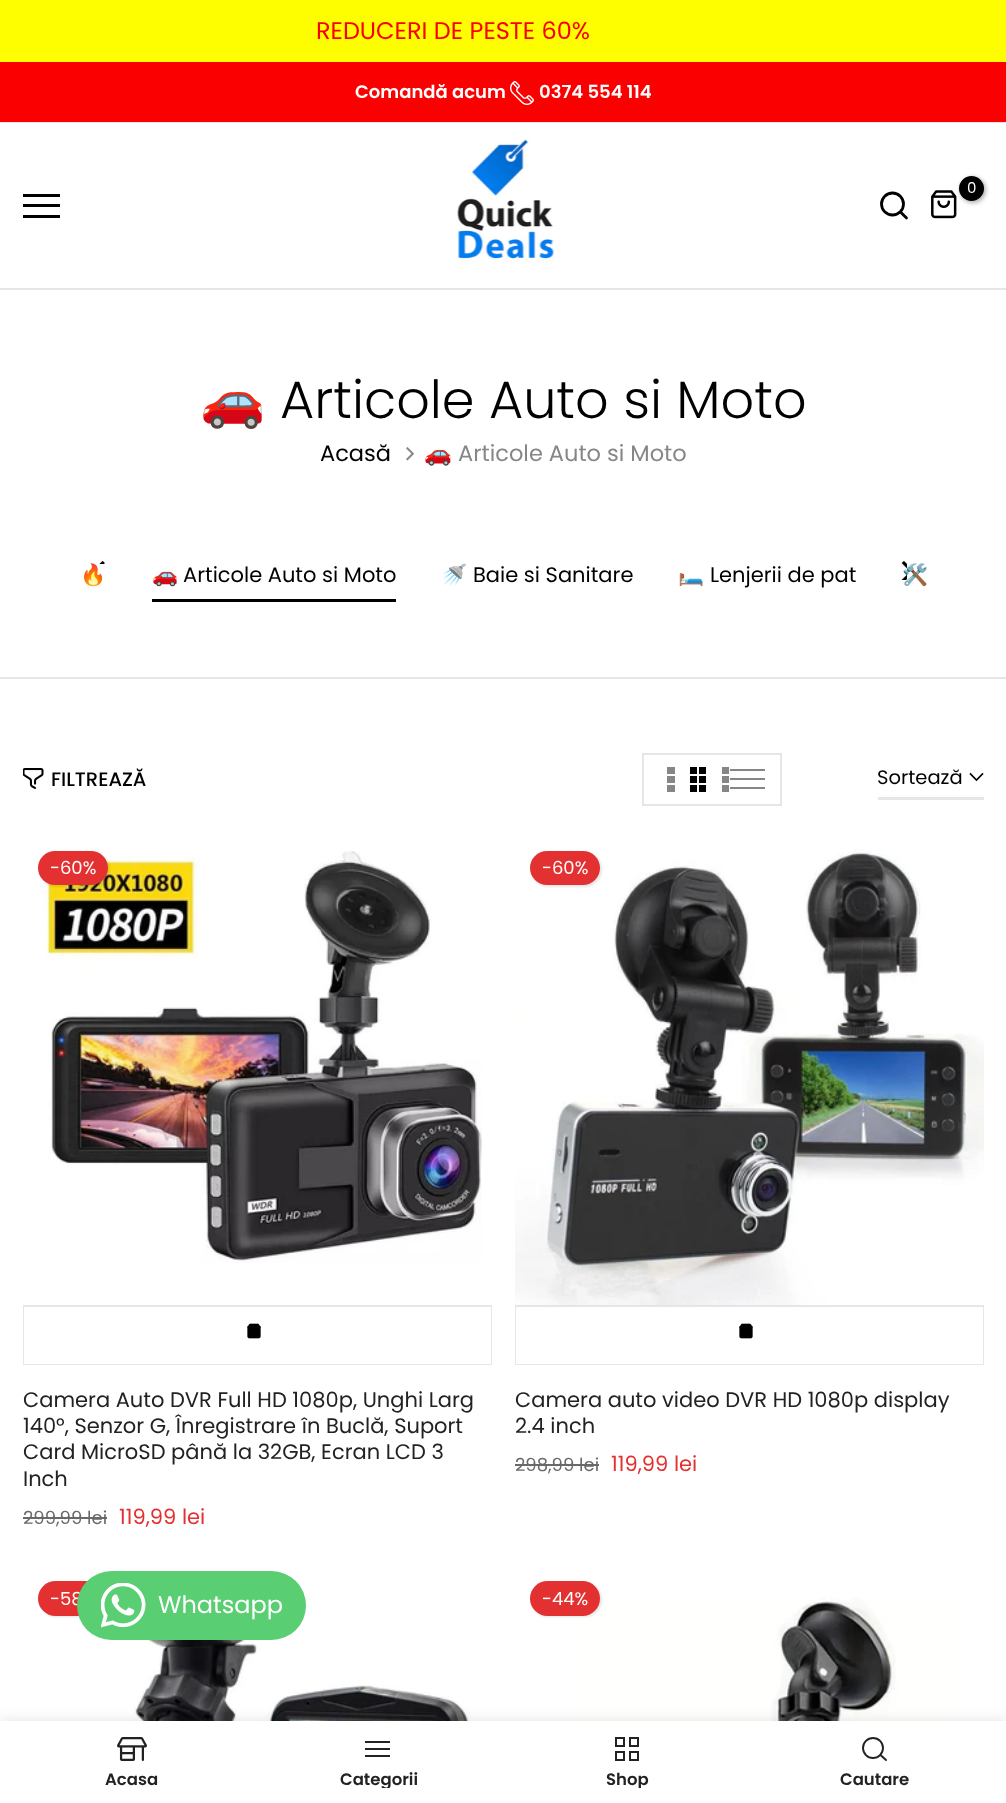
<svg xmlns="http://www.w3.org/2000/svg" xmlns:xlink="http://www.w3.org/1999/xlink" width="1006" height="1803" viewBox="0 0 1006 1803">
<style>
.cls-1{font:24px Poppins;fill:#fa0000}
.cls-2{font:600 18px Poppins;fill:#ffffff}
.cls-3{font:15px Poppins;fill:#ffffff}
.cls-4{font:52.5px Noto Color Emoji;fill:#000000}
.cls-5{font:300 52.5px Poppins;fill:#000000}
.cls-6{font:22.5px Poppins;fill:#000000}
.cls-7{font:22.5px Noto Color Emoji;fill:#868686}
.cls-8{font:22.5px Poppins;fill:#868686}
.cls-9{font:21px Noto Color Emoji;fill:#000000}
.cls-10{font:21px Poppins;fill:#000000}
.cls-11{font:500 19.5px Poppins;fill:#000000}
.cls-12{font:19.5px Poppins;fill:#000000}
.cls-13{font:18px Poppins;fill:#ffffff}
.cls-14{font:21px Poppins;fill:#222222}
.cls-15{font:18px Poppins;fill:#696969}
.cls-16{font:21px Poppins;fill:#e33131}
.cls-17{font:24px Poppins;fill:#ffffff}
.cls-18{font:600 16.5px Poppins;fill:#222222}
</style>
<defs>
<clipPath id="clip1"><rect x="270" y="1772" width="219" height="16"/></clipPath>
<clipPath id="clip2"><rect x="519" y="1772" width="218" height="16"/></clipPath>
</defs>
<rect width="100%" height="100%" fill="#ffffff"/>
<rect fill="#fffe00" x="0" y="0" width="1006" height="62"/>
<rect fill="#fa0000" x="0" y="62" width="1006" height="60"/>
<rect fill="#e6e6e6" x="0" y="122" width="1006" height="1"/>
<image xlink:href="image0.png" x="510" y="81" width="24" height="24"/>
<image xlink:href="image1.png" x="457" y="138" width="98" height="125"/>
<image xlink:href="image2.png" x="931" y="190" width="26" height="29"/>
<rect fill="#000000" fill-opacity="0.3" filter="blur(2px)" x="960" y="177" width="26" height="26" rx="13"/>
<circle fill="#000000" cx="971.5" cy="188.5" r="12.5"/>
<circle fill="none" stroke="#000000" stroke-width="2.8" cx="892.5" cy="204" r="11"/>
<path fill="none" stroke="#000000" stroke-width="2.8" stroke-linecap="round" stroke-linejoin="round" d="M906.5 218L900.5 212"/>
<rect fill="#000000" x="23" y="194" width="37" height="3"/>
<rect fill="#000000" x="23" y="204" width="37" height="3"/>
<rect fill="#000000" x="23" y="215" width="37" height="3"/>
<rect fill="#e6e6e6" x="0" y="288" width="1006" height="2"/>
<rect fill="#e6e6e6" x="0" y="677" width="1006" height="2"/>
<image xlink:href="image3.png" x="406" y="447" width="9" height="14"/>
<rect fill="#000000" x="152" y="599" width="244" height="3"/>
<image xlink:href="image6.png" x="23" y="768" width="21" height="21"/>
<rect fill="none" stroke="#e6e6e6" stroke-width="2" x="643" y="754" width="138" height="51"/>
<rect fill="#868686" x="667" y="767" width="8" height="7"/>
<rect fill="#868686" x="667" y="776" width="8" height="7"/>
<rect fill="#868686" x="667" y="785" width="8" height="7"/>
<image xlink:href="image7.png" x="690" y="767" width="16" height="25"/>
<rect fill="#868686" x="722" y="767" width="7" height="7"/>
<rect fill="#868686" x="722" y="776" width="7" height="7"/>
<rect fill="#868686" x="722" y="785" width="7" height="7"/>
<rect fill="#868686" x="730" y="769" width="35" height="2"/>
<rect fill="#868686" x="730" y="778" width="35" height="2"/>
<rect fill="#868686" x="730" y="787" width="35" height="2"/>
<rect fill="#e6e6e6" x="878" y="797" width="106" height="3"/>
<path fill="none" stroke="#000000" stroke-width="1.6" stroke-linecap="square" d="M982.5 774L976.5 780L970.5 774"/>
<image xlink:href="image8.png" x="43" y="851" width="439" height="412"/>
<rect fill="#000000" fill-opacity="0.1" filter="blur(1px)" x="39" y="852" width="71" height="35" rx="17.5"/>
<rect fill="#e33131" x="38" y="851" width="70" height="34" rx="17"/>
<rect fill="#e6e6e6" x="23" y="1305" width="469" height="2"/>
<rect fill="#e6e6e6" x="23" y="1364" width="469" height="1"/>
<rect fill="#e6e6e6" x="23" y="1305" width="2" height="60"/>
<rect fill="#ffffff" x="24" y="1307" width="1" height="57"/>
<rect fill="#e6e6e6" x="491" y="1307" width="1" height="57"/>
<image xlink:href="image9.png" x="247" y="1323" width="14" height="16"/>
<rect fill="#696969" x="23" y="1517" width="84" height="2"/>
<image xlink:href="image10.png" x="515" y="849" width="469" height="456"/>
<rect fill="#000000" fill-opacity="0.1" filter="blur(1px)" x="531" y="852" width="71" height="35" rx="17.5"/>
<rect fill="#e33131" x="530" y="851" width="70" height="34" rx="17"/>
<rect fill="#e6e6e6" x="515" y="1305" width="469" height="2"/>
<rect fill="#e6e6e6" x="515" y="1364" width="469" height="1"/>
<rect fill="#e6e6e6" x="515" y="1305" width="2" height="60"/>
<rect fill="#ffffff" x="516" y="1307" width="1" height="57"/>
<rect fill="#e6e6e6" x="983" y="1307" width="1" height="57"/>
<image xlink:href="image9.png" x="739" y="1323" width="14" height="16"/>
<rect fill="#696969" x="515" y="1464" width="84" height="2"/>
<image xlink:href="image11.png" x="85" y="1582" width="386" height="139"/>
<rect fill="#000000" fill-opacity="0.1" filter="blur(1px)" x="39" y="1583" width="71" height="34" rx="17"/>
<rect fill="#e33131" x="38" y="1581" width="70" height="35" rx="17.5"/>
<image xlink:href="image12.png" x="572" y="1597" width="383" height="124"/>
<rect fill="#000000" fill-opacity="0.1" filter="blur(1px)" x="531" y="1583" width="71" height="34" rx="17"/>
<rect fill="#e33131" x="530" y="1581" width="70" height="35" rx="17.5"/>
<rect fill="#000000" fill-opacity="0.12" filter="blur(7px)" x="0" y="1721" width="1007" height="82"/>
<rect fill="#ffffff" x="0" y="1721" width="1006" height="82"/>
<image xlink:href="image14.png" x="117" y="1737" width="30" height="24"/>
<rect fill="#222222" x="365" y="1741" width="25" height="2"/>
<rect fill="#222222" x="365" y="1748" width="25" height="2"/>
<rect fill="#222222" x="365" y="1755" width="25" height="2"/>
<rect fill="none" stroke="#222222" stroke-width="2" x="616" y="1738" width="8" height="8"/>
<rect fill="none" stroke="#222222" stroke-width="2" x="630" y="1738" width="8" height="8"/>
<rect fill="none" stroke="#222222" stroke-width="2" x="616" y="1752" width="8" height="8"/>
<rect fill="none" stroke="#222222" stroke-width="2" x="630" y="1752" width="8" height="8"/>
<circle fill="none" stroke="#222222" stroke-width="1.9" cx="873" cy="1748" r="10"/>
<path fill="none" stroke="#222222" stroke-width="1.9" stroke-linecap="round" stroke-linejoin="round" d="M886 1760L880.5 1755"/>
<text class="cls-1" x="316" y="39">REDUCERI DE PESTE 60%</text>
<text class="cls-2" x="355" y="98">Comandă acum</text>
<text class="cls-2" x="539" y="98">0374 554 114</text>
<text class="cls-3" x="967" y="193">0</text>
<text class="cls-4" x="200" y="418">🚗</text>
<text class="cls-5" x="280" y="418">Articole Auto si Moto</text>
<text class="cls-6" x="320" y="461">Acasă</text>
<text class="cls-7" x="424" y="461">🚗</text>
<text class="cls-8" x="458" y="461">Articole Auto si Moto</text>
<text class="cls-9" x="80" y="582">🔥</text>
<image xlink:href="image4.png" x="99" y="561" width="6" height="3"/>
<text class="cls-9" x="152" y="582">🚗</text>
<text class="cls-10" x="183" y="582">Articole Auto si Moto</text>
<text class="cls-9" x="441" y="582">🚿</text>
<text class="cls-10" x="473" y="582">Baie si Sanitare</text>
<text class="cls-9" x="678" y="582">🛏️</text>
<text class="cls-10" x="710" y="582">Lenjerii de pat</text>
<text class="cls-9" x="902" y="582">🛠️</text>
<image xlink:href="image5.png" x="901" y="561" width="6" height="19"/>
<text class="cls-11" x="51" y="786">FILTREAZĂ</text>
<text class="cls-12" x="877" y="784">Sortează</text>
<text class="cls-13" x="50" y="874">-60%</text>
<text class="cls-14"><tspan x="23" y="1407">Camera Auto DVR Full HD 1080p, Unghi Larg</tspan><tspan x="23" y="1433">140°, Senzor G, Înregistrare în Buclă, Suport</tspan><tspan x="23" y="1459">Card MicroSD până la 32GB, Ecran LCD 3</tspan><tspan x="23" y="1486">Inch</tspan></text>
<text class="cls-15" x="23" y="1524">299,99 lei</text>
<text class="cls-16" x="119" y="1524">119,99 lei</text>
<text class="cls-13" x="542" y="874">-60%</text>
<text class="cls-14"><tspan x="515" y="1407">Camera auto video DVR HD 1080p display</tspan><tspan x="515" y="1433">2.4 inch</tspan></text>
<text class="cls-15" x="515" y="1471">298,99 lei</text>
<text class="cls-16" x="611" y="1471">119,99 lei</text>
<text class="cls-13" x="50" y="1605">-58</text>
<text class="cls-13" x="542" y="1605">-44%</text>
<rect fill="#59ce72" x="77" y="1571" width="229" height="69" rx="34.5"/>
<image xlink:href="image13.png" x="101" y="1583" width="45" height="45"/>
<text class="cls-17" x="158" y="1613">Whatsapp</text>
<text class="cls-18" x="105" y="1785">Acasa</text>
<g clip-path="url(#clip1)">
<text class="cls-18" x="340" y="1785">Categorii</text>
</g>
<g clip-path="url(#clip2)">
<text class="cls-18" x="606" y="1785">Shop</text>
</g>
<text class="cls-18" x="840" y="1785">Cautare</text>
</svg>
